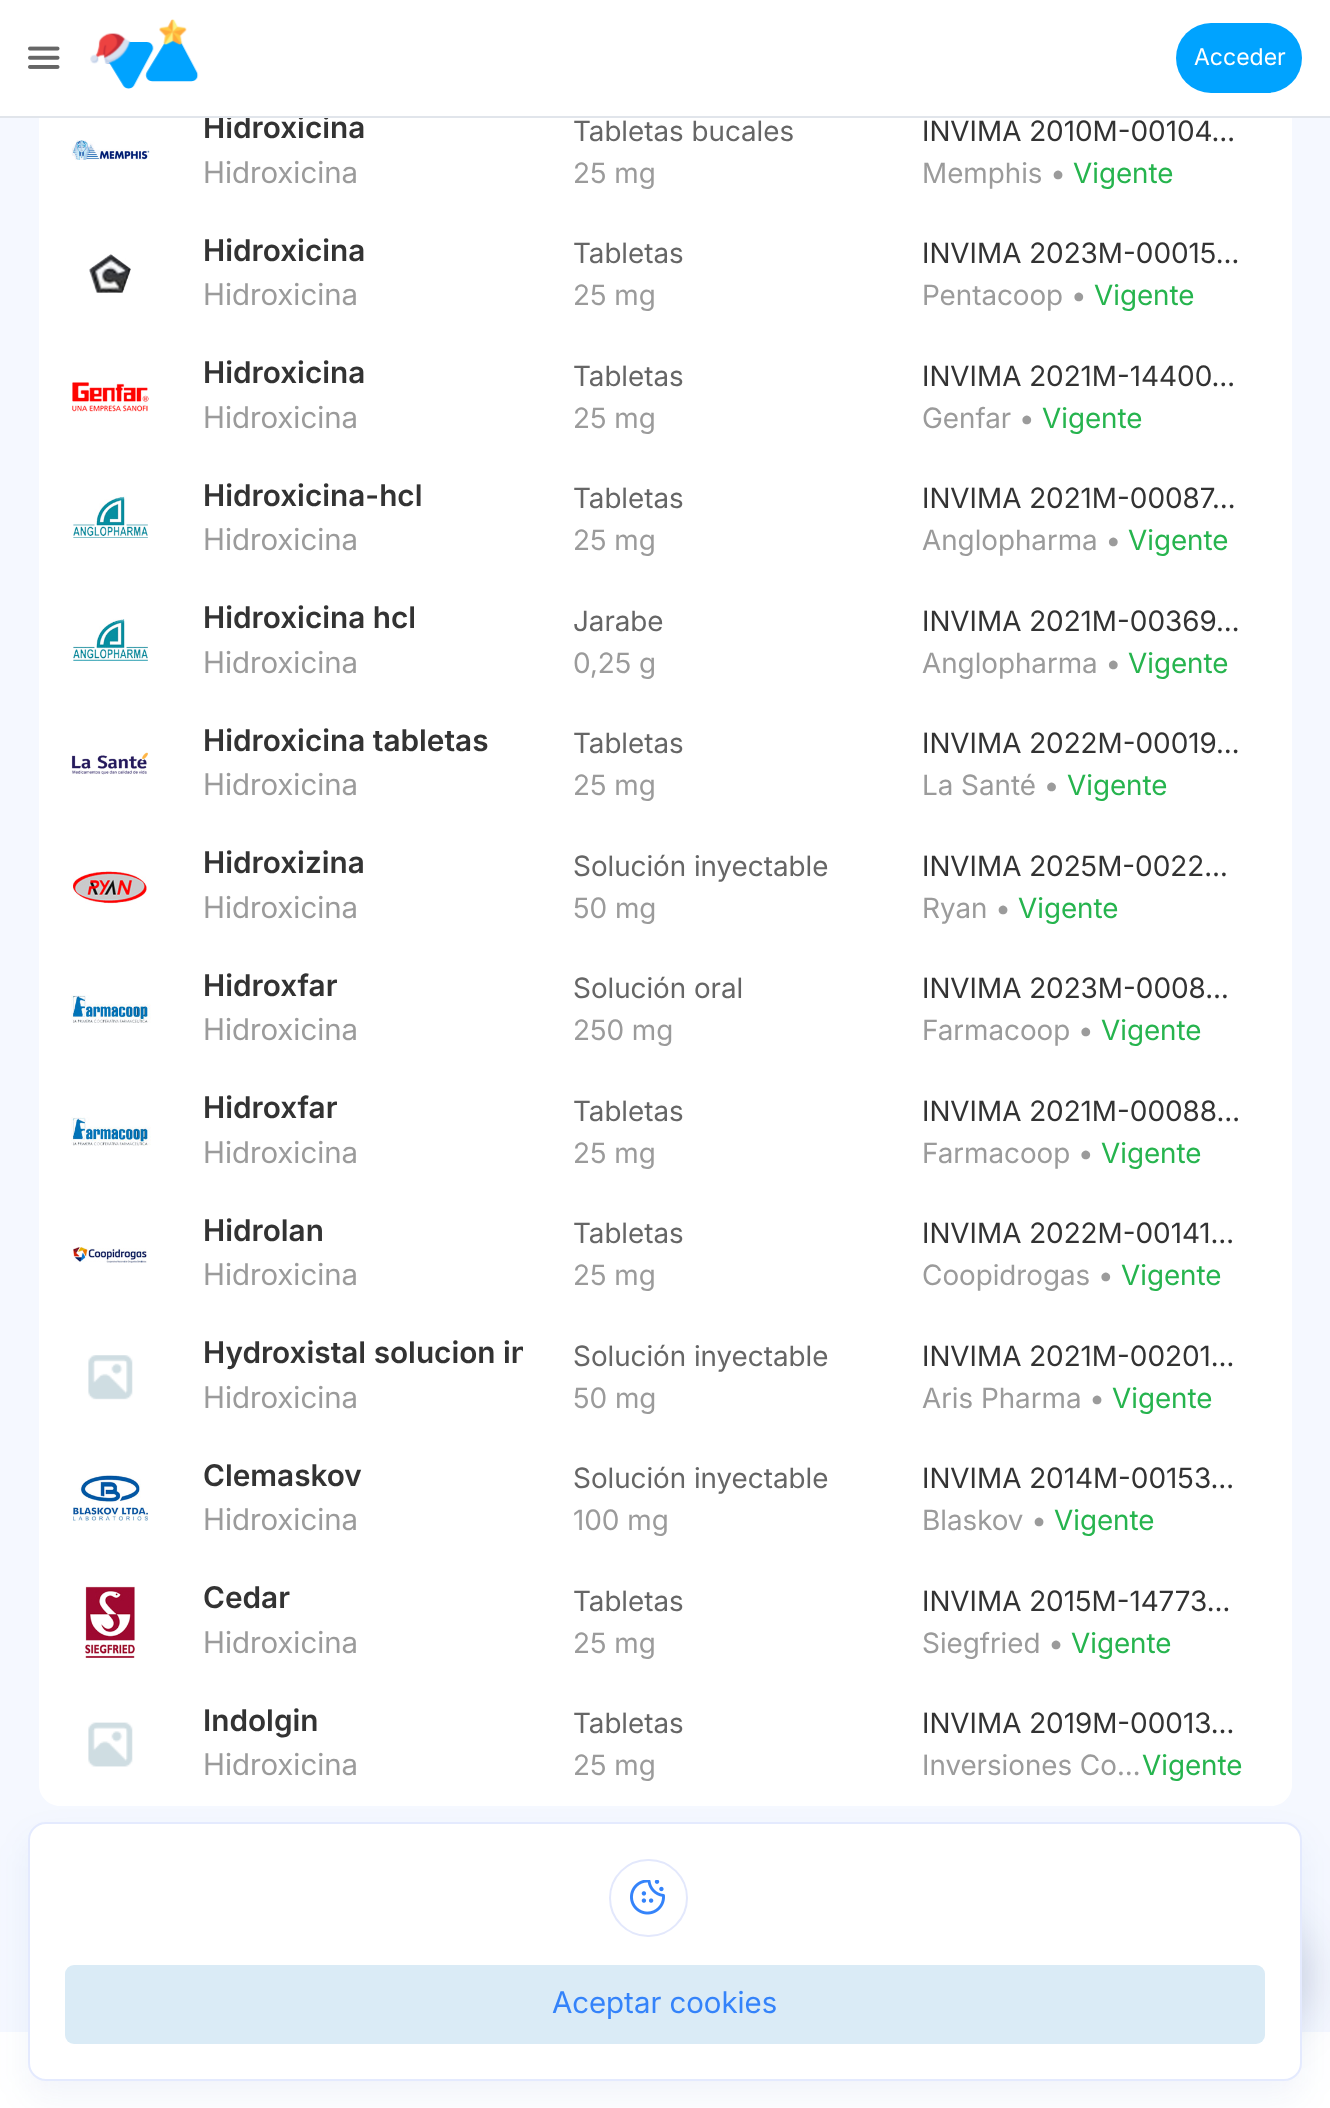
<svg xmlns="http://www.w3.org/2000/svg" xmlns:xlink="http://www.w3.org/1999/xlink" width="1330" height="2108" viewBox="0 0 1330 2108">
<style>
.cls-1{font:600 29.75px Inter;fill:#333333}
.cls-2{font:23px 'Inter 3';fill:#ffffff}
.cls-3{font:29.75px Inter;fill:#9b9b9b}
.cls-4{font:28px 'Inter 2';fill:#666666}
.cls-5{font:28px 'Inter 2';fill:#9b9b9b}
.cls-6{font:28px 'Inter 2';fill:#333333}
.cls-7{font:28px 'Inter 2';fill:#26b44e}
.cls-8{font:29.75px Inter;fill:#3483fa}
</style>
<defs>
<clipPath id="clip1"><rect x="203" y="1332" width="320" height="89"/></clipPath>
</defs>
<rect width="100%" height="100%" fill="#f5f8ff"/>
<rect fill="#ffffff" x="39" y="118" width="1253" height="1566"/>
<image xlink:href="image2.png" x="71" y="140" width="79" height="20"/>
<image xlink:href="image3.png" x="89" y="254" width="42" height="39"/>
<image xlink:href="image4.png" x="72" y="382" width="77" height="30"/>
<image xlink:href="image5.png" x="73" y="496" width="75" height="42"/>
<image xlink:href="image6.png" x="73" y="619" width="75" height="42"/>
<image xlink:href="image7.png" x="71" y="752" width="77" height="23"/>
<image xlink:href="image8.png" x="73" y="871" width="74" height="33"/>
<image xlink:href="image9.png" x="71" y="995" width="80" height="28"/>
<image xlink:href="image10.png" x="71" y="1117" width="80" height="29"/>
<image xlink:href="image11.png" x="73" y="1247" width="74" height="16"/>
<image xlink:href="image12.png" x="88" y="1355" width="45" height="45"/>
<image xlink:href="image13.png" x="73" y="1475" width="75" height="46"/>
<image xlink:href="image14.png" x="85" y="1586" width="50" height="72"/>
<path fill="#ffffff" d="M39 1684H1292V1785C1292 1796.5 1282.5 1806 1271 1806H60C48.5 1806 39 1796.5 39 1785Z"/>
<image xlink:href="image15.png" x="88" y="1722" width="45" height="45"/>
<rect fill="#ffffff" x="0" y="2032" width="1330" height="76"/>
<rect fill="#1347af" fill-opacity="0.06" filter="blur(17.5px)" x="28" y="1839" width="1274" height="259" rx="18"/>
<rect fill="#112455" fill-opacity="0.25" filter="blur(26px)" x="1199" y="1925" width="103" height="103" rx="51.5"/>
<rect fill="#ffffff" x="28" y="1822" width="1274" height="259" rx="18"/>
<rect fill="none" stroke="#416bf6" stroke-opacity="0.14" stroke-width="2" x="29" y="1823" width="1272" height="257" rx="17"/>
<rect fill="none" stroke="#e3e8fc" stroke-width="2" x="610" y="1860" width="77" height="76" rx="38"/>
<image xlink:href="image16.png" x="630" y="1880" width="35" height="35"/>
<rect fill="#daebf6" x="65" y="1965" width="1200" height="79" rx="9"/>
<text class="cls-1" x="203" y="138">Hidroxicina</text>
<rect fill="#ffffff" x="0" y="0" width="1330" height="116"/>
<rect fill="#00a3ff" x="1176" y="23" width="126" height="70" rx="35"/>
<text class="cls-2" x="1194" y="65">Acceder</text>
<image xlink:href="image1.png" x="90" y="19" width="109" height="70"/>
<image xlink:href="image0.png" x="28" y="46" width="32" height="23"/>
<rect fill="#e1e5eb" x="0" y="116" width="1330" height="2"/>
<text class="cls-3" x="203" y="183">Hidroxicina</text>
<text class="cls-4" x="573" y="141">Tabletas bucales</text>
<text class="cls-5" x="573" y="183">25 mg</text>
<text class="cls-6" x="922" y="141">INVIMA 2010M-00104…</text>
<text class="cls-5" x="922" y="183">Memphis •</text>
<text class="cls-7" x="1073" y="183">Vigente</text>
<text class="cls-1" x="203" y="261">Hidroxicina</text>
<text class="cls-3" x="203" y="305">Hidroxicina</text>
<text class="cls-4" x="573" y="263">Tabletas</text>
<text class="cls-5" x="573" y="305">25 mg</text>
<text class="cls-6" x="922" y="263">INVIMA 2023M-00015…</text>
<text class="cls-5" x="922" y="305">Pentacoop •</text>
<text class="cls-7" x="1094" y="305">Vigente</text>
<text class="cls-1" x="203" y="383">Hidroxicina</text>
<text class="cls-3" x="203" y="428">Hidroxicina</text>
<text class="cls-4" x="573" y="386">Tabletas</text>
<text class="cls-5" x="573" y="428">25 mg</text>
<text class="cls-6" x="922" y="386">INVIMA 2021M-14400…</text>
<text class="cls-5" x="922" y="428">Genfar •</text>
<text class="cls-7" x="1042" y="428">Vigente</text>
<text class="cls-1" x="203" y="506">Hidroxicina-hcl</text>
<text class="cls-3" x="203" y="550">Hidroxicina</text>
<text class="cls-4" x="573" y="508">Tabletas</text>
<text class="cls-5" x="573" y="550">25 mg</text>
<text class="cls-6" x="922" y="508">INVIMA 2021M-00087…</text>
<text class="cls-5" x="922" y="550">Anglopharma •</text>
<text class="cls-7" x="1128" y="550">Vigente</text>
<text class="cls-1" x="203" y="628">Hidroxicina hcl</text>
<text class="cls-3" x="203" y="673">Hidroxicina</text>
<text class="cls-4" x="573" y="631">Jarabe</text>
<text class="cls-5" x="573" y="673">0,25 g</text>
<text class="cls-6" x="922" y="631">INVIMA 2021M-00369…</text>
<text class="cls-5" x="922" y="673">Anglopharma •</text>
<text class="cls-7" x="1128" y="673">Vigente</text>
<text class="cls-1" x="203" y="751">Hidroxicina tabletas</text>
<text class="cls-3" x="203" y="795">Hidroxicina</text>
<text class="cls-4" x="573" y="753">Tabletas</text>
<text class="cls-5" x="573" y="795">25 mg</text>
<text class="cls-6" x="922" y="753">INVIMA 2022M-00019…</text>
<text class="cls-5" x="922" y="795">La Santé •</text>
<text class="cls-7" x="1067" y="795">Vigente</text>
<text class="cls-1" x="203" y="873">Hidroxizina</text>
<text class="cls-3" x="203" y="918">Hidroxicina</text>
<text class="cls-4" x="573" y="876">Solución inyectable</text>
<text class="cls-5" x="573" y="918">50 mg</text>
<text class="cls-6" x="922" y="876">INVIMA 2025M-0022…</text>
<text class="cls-5" x="922" y="918">Ryan •</text>
<text class="cls-7" x="1018" y="918">Vigente</text>
<text class="cls-1" x="203" y="996">Hidroxfar</text>
<text class="cls-3" x="203" y="1040">Hidroxicina</text>
<text class="cls-4" x="573" y="998">Solución oral</text>
<text class="cls-5" x="573" y="1040">250 mg</text>
<text class="cls-6" x="922" y="998">INVIMA 2023M-0008…</text>
<text class="cls-5" x="922" y="1040">Farmacoop •</text>
<text class="cls-7" x="1101" y="1040">Vigente</text>
<text class="cls-1" x="203" y="1118">Hidroxfar</text>
<text class="cls-3" x="203" y="1163">Hidroxicina</text>
<text class="cls-4" x="573" y="1121">Tabletas</text>
<text class="cls-5" x="573" y="1163">25 mg</text>
<text class="cls-6" x="922" y="1121">INVIMA 2021M-00088…</text>
<text class="cls-5" x="922" y="1163">Farmacoop •</text>
<text class="cls-7" x="1101" y="1163">Vigente</text>
<text class="cls-1" x="203" y="1241">Hidrolan</text>
<text class="cls-3" x="203" y="1285">Hidroxicina</text>
<text class="cls-4" x="573" y="1243">Tabletas</text>
<text class="cls-5" x="573" y="1285">25 mg</text>
<text class="cls-6" x="922" y="1243">INVIMA 2022M-00141…</text>
<text class="cls-5" x="922" y="1285">Coopidrogas •</text>
<text class="cls-7" x="1121" y="1285">Vigente</text>
<g clip-path="url(#clip1)">
<text class="cls-1" x="203" y="1363">Hydroxistal solucion in</text>
</g>
<text class="cls-3" x="203" y="1408">Hidroxicina</text>
<text class="cls-4" x="573" y="1366">Solución inyectable</text>
<text class="cls-5" x="573" y="1408">50 mg</text>
<text class="cls-6" x="922" y="1366">INVIMA 2021M-00201…</text>
<text class="cls-5" x="922" y="1408">Aris Pharma •</text>
<text class="cls-7" x="1112" y="1408">Vigente</text>
<text class="cls-1" x="203" y="1486">Clemaskov</text>
<text class="cls-3" x="203" y="1530">Hidroxicina</text>
<text class="cls-4" x="573" y="1488">Solución inyectable</text>
<text class="cls-5" x="573" y="1530">100 mg</text>
<text class="cls-6" x="922" y="1488">INVIMA 2014M-00153…</text>
<text class="cls-5" x="922" y="1530">Blaskov •</text>
<text class="cls-7" x="1054" y="1530">Vigente</text>
<text class="cls-1" x="203" y="1608">Cedar</text>
<text class="cls-3" x="203" y="1653">Hidroxicina</text>
<text class="cls-4" x="573" y="1611">Tabletas</text>
<text class="cls-5" x="573" y="1653">25 mg</text>
<text class="cls-6" x="922" y="1611">INVIMA 2015M-14773…</text>
<text class="cls-5" x="922" y="1653">Siegfried •</text>
<text class="cls-7" x="1071" y="1653">Vigente</text>
<text class="cls-1" x="203" y="1731">Indolgin</text>
<text class="cls-3" x="203" y="1775">Hidroxicina</text>
<text class="cls-4" x="573" y="1733">Tabletas</text>
<text class="cls-5" x="573" y="1775">25 mg</text>
<text class="cls-6" x="922" y="1733">INVIMA 2019M-00013…</text>
<text class="cls-5" x="922" y="1775">Inversiones Co…</text>
<text class="cls-7" x="1142" y="1775">Vigente</text>
<text class="cls-8" x="552" y="2013">Aceptar cookies</text>
</svg>
